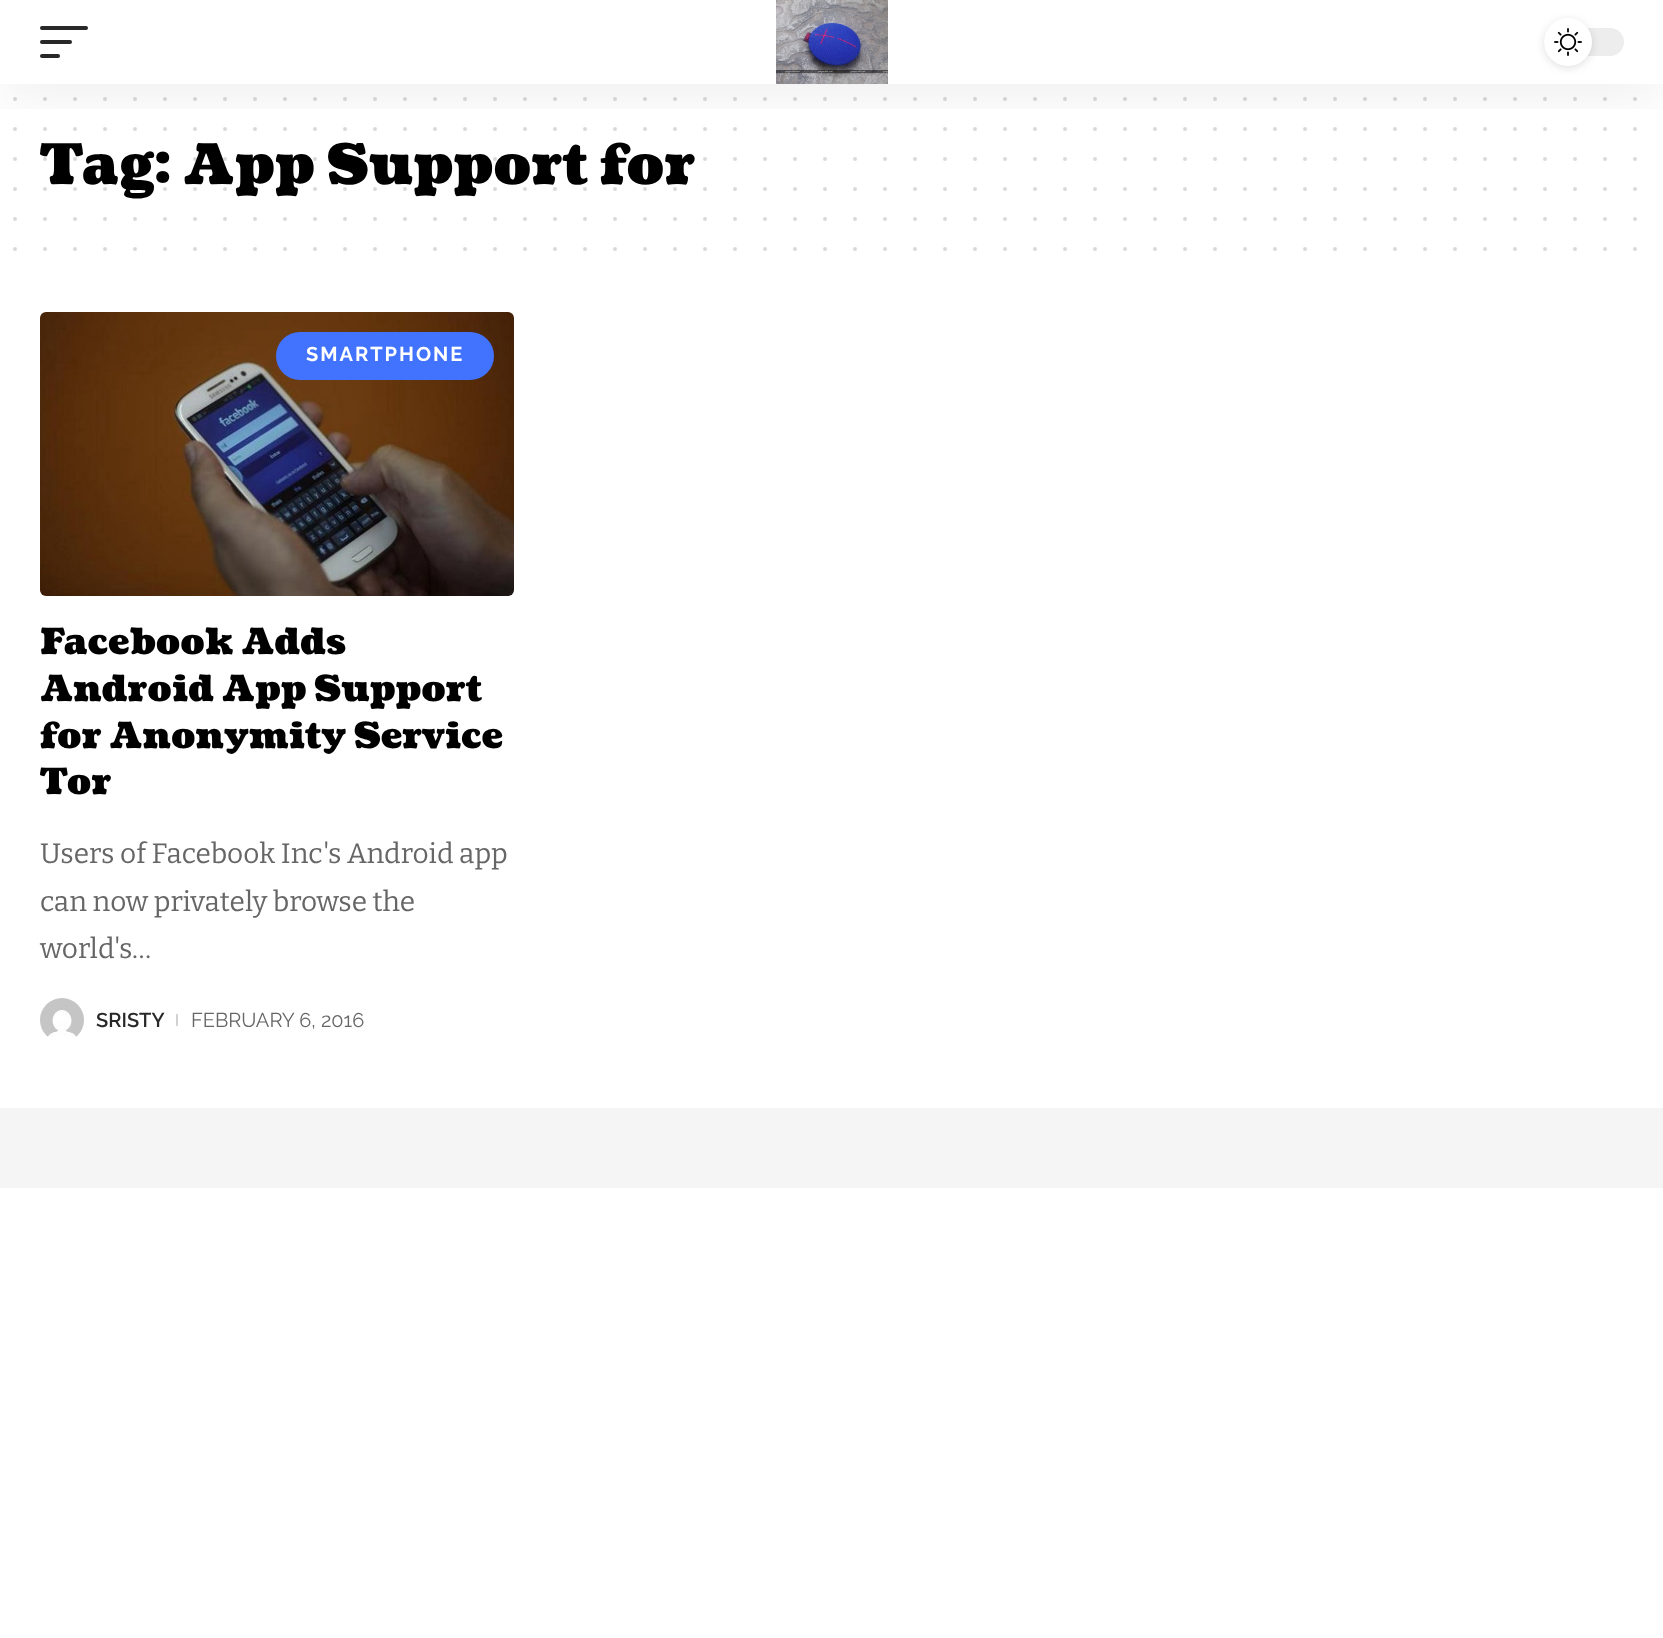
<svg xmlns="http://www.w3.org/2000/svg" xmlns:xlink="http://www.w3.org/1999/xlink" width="1663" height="1638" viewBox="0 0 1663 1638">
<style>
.cls-1{font:900 56px Coustard;fill:#000000}
.cls-2{font:bold 20px Raleway;letter-spacing:2px;fill:#ffffff}
.cls-3{font:900 36px Coustard;fill:#000000}
.cls-4{font:28px Bitter;fill:#666666}
.cls-5{font:600 20px Raleway;fill:#282828}
.cls-6{font:20px Raleway;fill:#666666}
</style>
<defs>
<clipPath id="clip1"><rect x="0" y="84" width="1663" height="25"/></clipPath>
</defs>
<rect width="100%" height="100%" fill="#ffffff"/>
<path fill="none" stroke="#d9d9d9" stroke-width="4" stroke-linecap="round" stroke-dasharray="0 30" d="M15 99H1635.4"/>
<path fill="none" stroke="#d9d9d9" stroke-width="4" stroke-linecap="round" stroke-dasharray="0 30" d="M15 129H1635.4"/>
<path fill="none" stroke="#d9d9d9" stroke-width="4" stroke-linecap="round" stroke-dasharray="0 30" d="M15 219H1635.4"/>
<path fill="none" stroke="#d9d9d9" stroke-width="4" stroke-linecap="round" stroke-dasharray="0 30" d="M15 249H1635.4"/>
<image xlink:href="image2.png" x="40" y="312" width="474" height="284"/>
<rect fill="#4173ff" x="276" y="332" width="218" height="48" rx="24"/>
<image xlink:href="image3.png" x="40" y="998" width="44" height="39"/>
<rect fill="#d1d1d1" x="176" y="1014" width="2" height="12"/>
<rect fill="#f5f5f5" x="0" y="1108" width="1663" height="80"/>
<text class="cls-1" x="40" y="184">Tag: App Support for</text>
<path fill="none" stroke="#000000" stroke-opacity="0.15" stroke-width="4" stroke-linecap="round" stroke-dasharray="0 30" d="M15 159H1635.4"/>
<g clip-path="url(#clip1)">
<rect fill="#000000" fill-opacity="0.07" filter="blur(30px)" x="0" y="8" width="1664" height="84"/>
</g>
<rect fill="#ededed" x="1544" y="28" width="80" height="28" rx="14"/>
<rect fill="#000000" fill-opacity="0.12" filter="blur(4px)" x="1544" y="20" width="48" height="48" rx="24"/>
<circle fill="#ffffff" cx="1568" cy="42" r="24"/>
<image xlink:href="image1.png" x="1554" y="28" width="28" height="28"/>
<rect fill="#282828" x="40" y="54" width="20" height="4" rx="2"/>
<rect fill="#282828" x="40" y="40" width="32" height="4" rx="2"/>
<rect fill="#282828" x="40" y="26" width="48" height="4" rx="2"/>
<image xlink:href="image0.png" x="776" y="0" width="112" height="84"/>
<path fill="none" stroke="#000000" stroke-opacity="0.15" stroke-width="4" stroke-linecap="round" stroke-dasharray="0 30" d="M15 189H1635.4"/>
<text class="cls-2" x="306" y="361">SMARTPHONE</text>
<text class="cls-3"><tspan x="40" y="654">Facebook Adds</tspan><tspan x="40" y="701">Android App Support</tspan><tspan x="40" y="748">for Anonymity Service</tspan><tspan x="40" y="794">Tor</tspan></text>
<text class="cls-4"><tspan x="40" y="863">Users of Facebook Inc's Android app</tspan><tspan x="40" y="911">can now privately browse the</tspan><tspan x="40" y="958">world's</tspan></text>
<text class="cls-4" x="132" y="958">…</text>
<text class="cls-5" x="96" y="1027">SRISTY</text>
<text class="cls-6" x="191" y="1027">FEBRUARY 6, 2016</text>
</svg>
